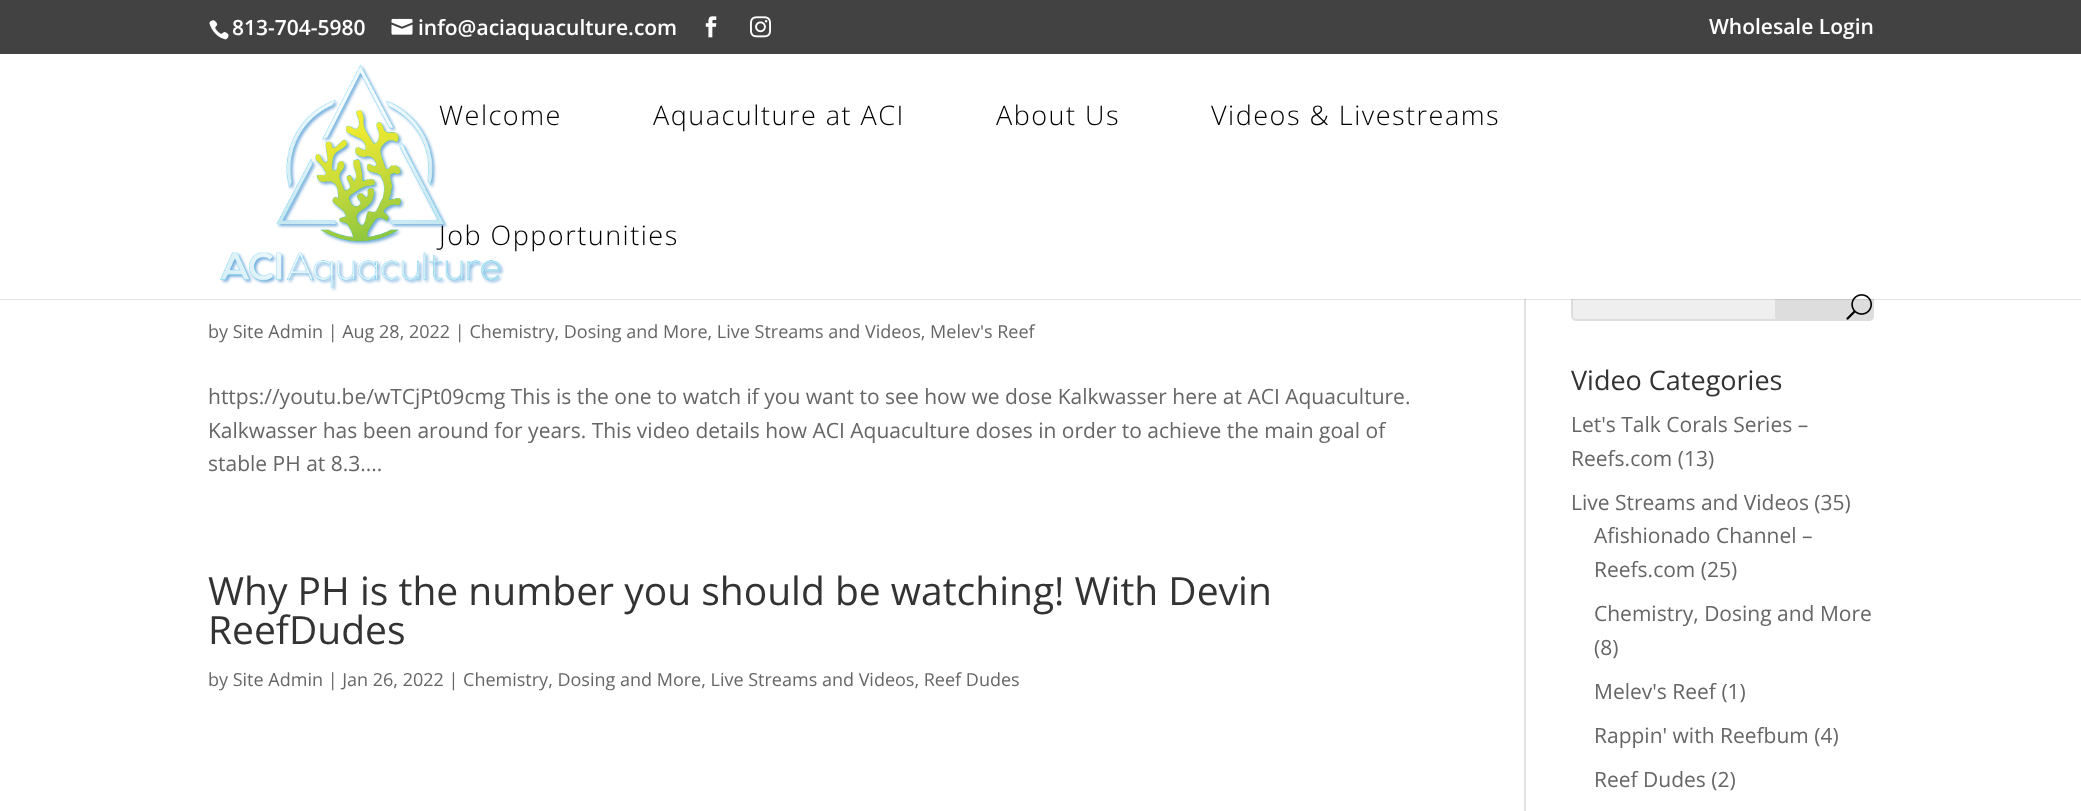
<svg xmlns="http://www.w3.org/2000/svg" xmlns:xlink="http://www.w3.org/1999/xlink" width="2081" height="811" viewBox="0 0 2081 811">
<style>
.cls-1{font:600 21px Open Sans;fill:#ffffff}
.cls-2{font:300 27px Open Sans;letter-spacing:1.5px;fill:#000000}
.cls-3{font:18px Open Sans;fill:#666666}
.cls-4{font:21px Open Sans;fill:#666666}
.cls-5{font:39px Open Sans;fill:#333333}
.cls-6{font:27px Open Sans;fill:#333333}
</style>
<rect width="100%" height="100%" fill="#ffffff"/>
<rect fill="#424242" x="0" y="0" width="2081" height="54"/>
<image xlink:href="image0.png" x="209" y="20" width="20" height="20"/>
<image xlink:href="image1.png" x="391" y="18" width="22" height="17"/>
<image xlink:href="image2.png" x="705" y="16" width="12" height="22"/>
<image xlink:href="image3.png" x="750" y="16" width="21" height="22"/>
<rect fill="#e2e2e2" x="1524" y="299" width="2" height="512"/>
<rect fill="#efefef" stroke="#dddddd" stroke-width="2" x="1572" y="262" width="301" height="58" rx="4"/>
<rect fill="#dddddd" stroke="#dddddd" stroke-width="2" x="1776" y="262" width="97" height="58" rx="4"/>
<rect fill="#000000" fill-opacity="0.1" x="0" y="299" width="2081" height="1"/>
<rect fill="#ffffff" x="1571" y="261" width="303" height="38"/>
<image xlink:href="image4.png" x="220" y="64" width="285" height="228"/>
<image xlink:href="image5.png" x="1846" y="294" width="26" height="26"/>
<text class="cls-1" x="232" y="35">813-704-5980</text>
<text class="cls-1" x="418" y="35">info@aciaquaculture.com</text>
<text class="cls-1" x="1709" y="34">Wholesale Login</text>
<text class="cls-2" x="439" y="125">Welcome</text>
<text class="cls-2" x="653" y="125">Aquaculture at ACI</text>
<text class="cls-2" x="996" y="125">About Us</text>
<text class="cls-2" x="1211" y="125">Videos &amp; Livestreams</text>
<text class="cls-2" x="439" y="245">Job Opportunities</text>
<text class="cls-3" x="208" y="338">by Site Admin | Aug 28, 2022 | Chemistry, Dosing and More, Live Streams and Videos, Melev's Reef</text>
<text class="cls-4"><tspan x="208" y="404">https://youtu.be/wTCjPt09cmg This is the one to watch if you want to see how we dose Kalkwasser here at ACI Aquaculture.</tspan><tspan x="208" y="438">Kalkwasser has been around for years. This video details how ACI Aquaculture doses in order to achieve the main goal of</tspan><tspan x="208" y="471">stable PH at 8.3....</tspan></text>
<text class="cls-5"><tspan x="208" y="605">Why PH is the number you should be watching! With Devin</tspan><tspan x="208" y="644">ReefDudes</tspan></text>
<text class="cls-3" x="208" y="686">by Site Admin | Jan 26, 2022 | Chemistry, Dosing and More, Live Streams and Videos, Reef Dudes</text>
<text class="cls-6" x="1571" y="390">Video Categories</text>
<text class="cls-4"><tspan x="1571" y="432">Let's Talk Corals Series –</tspan><tspan x="1571" y="466">Reefs.com (13)</tspan></text>
<text class="cls-4" x="1571" y="510">Live Streams and Videos (35)</text>
<text class="cls-4"><tspan x="1594" y="543">Afishionado Channel –</tspan><tspan x="1594" y="577">Reefs.com (25)</tspan></text>
<text class="cls-4"><tspan x="1594" y="621">Chemistry, Dosing and More</tspan><tspan x="1594" y="655">(8)</tspan></text>
<text class="cls-4" x="1594" y="699">Melev's Reef (1)</text>
<text class="cls-4" x="1594" y="743">Rappin' with Reefbum (4)</text>
<text class="cls-4" x="1594" y="787">Reef Dudes (2)</text>
</svg>
